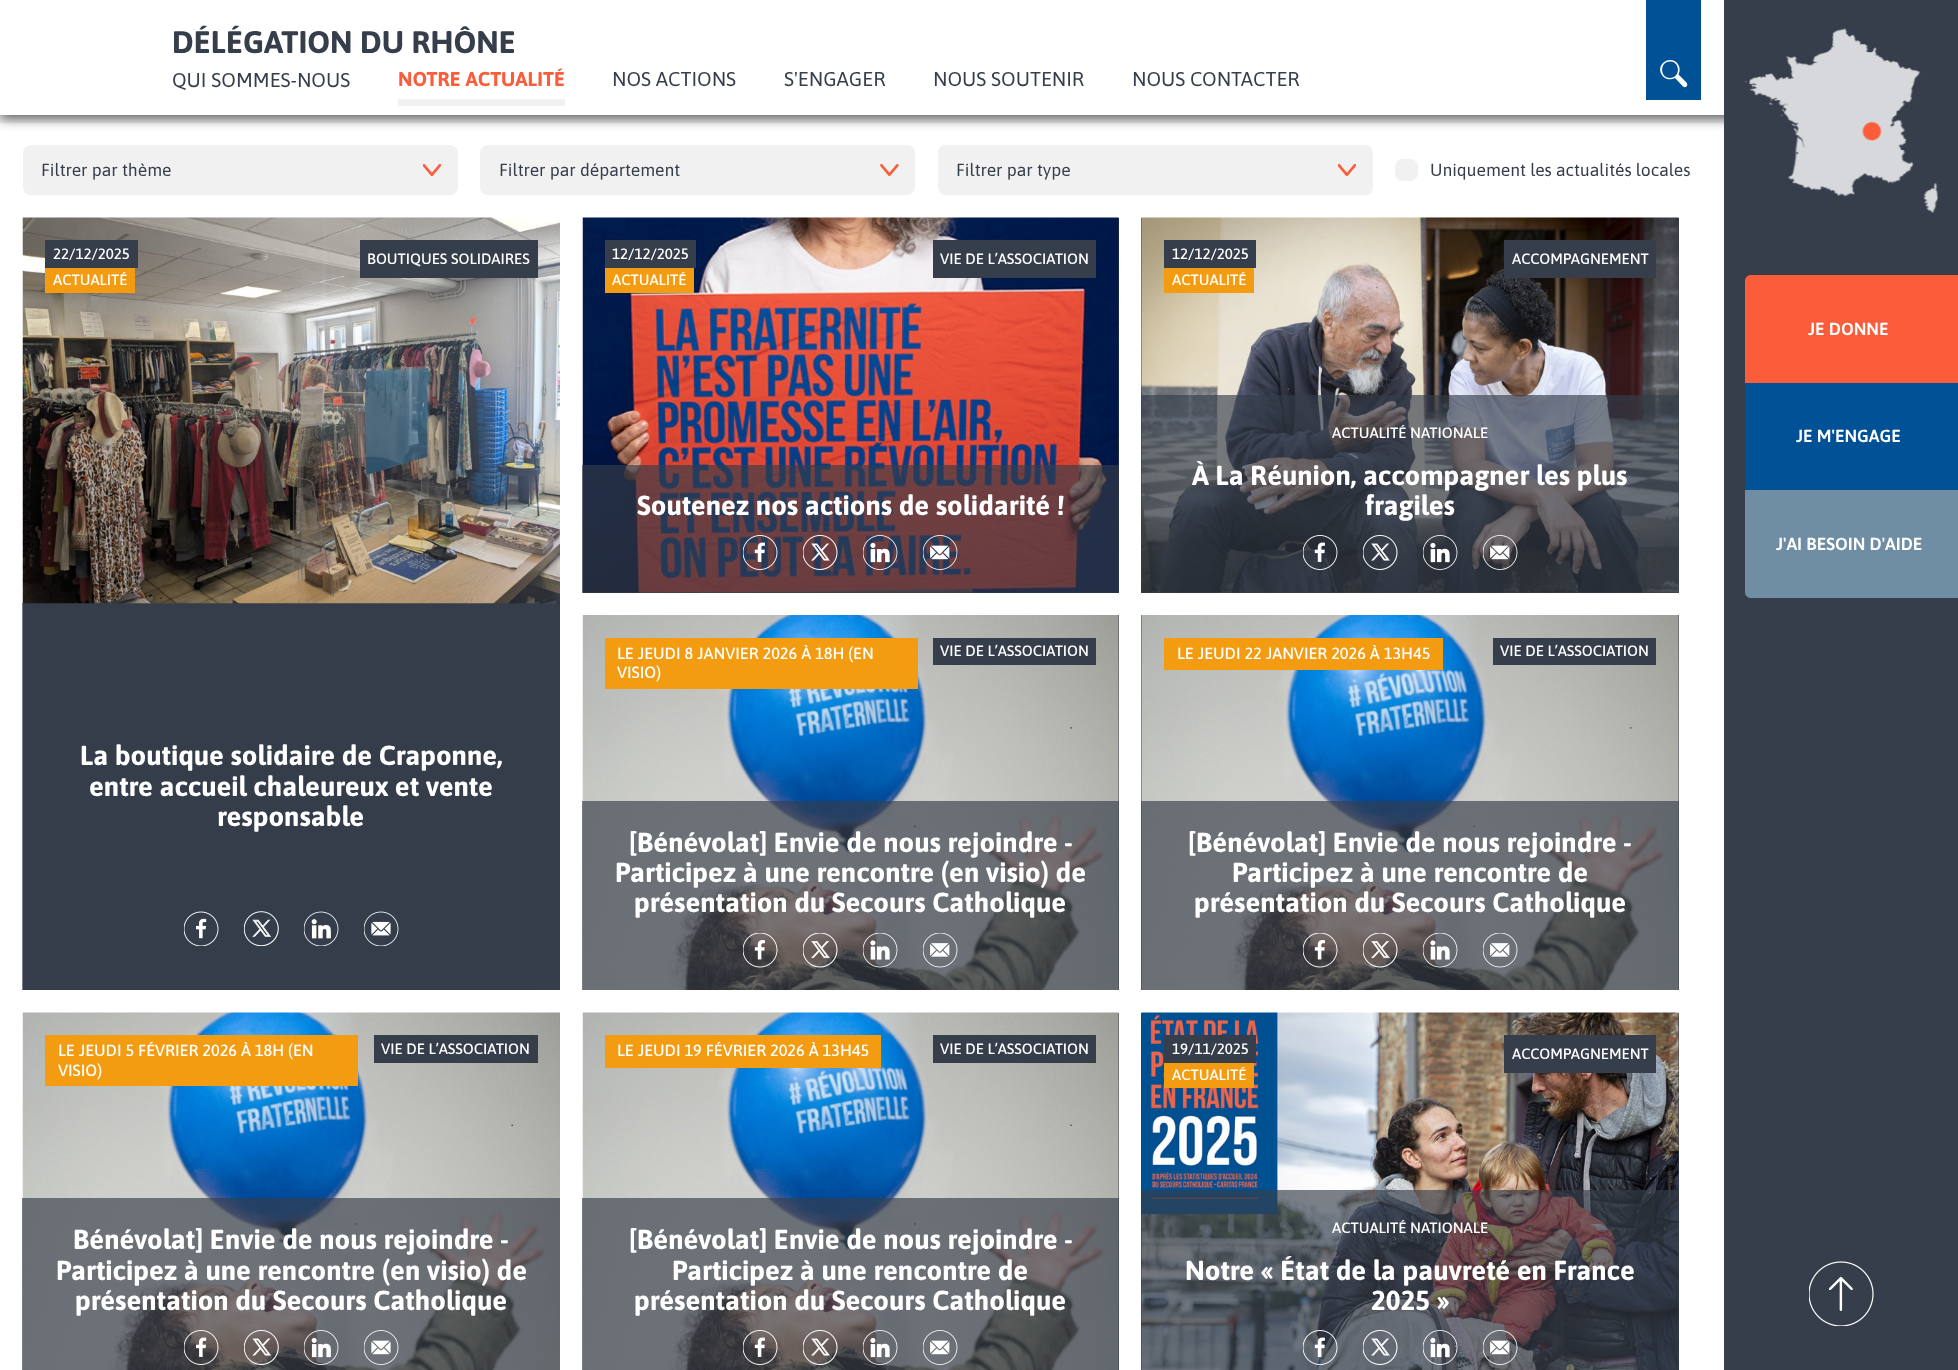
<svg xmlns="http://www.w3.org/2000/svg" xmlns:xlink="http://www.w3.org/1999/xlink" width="1958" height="1370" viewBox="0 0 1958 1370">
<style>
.cls-1{font:bold 31.25px Asap;fill:#363e4b}
.cls-2{font:20px Asap;fill:#363e4b}
.cls-3{font:bold 20px Asap;fill:#fb5c3a}
.cls-4{font:17.5px Asap;fill:#363e4b}
.cls-5{font:500 15px Asap;fill:#ffffff}
.cls-6{font:bold 27.5px Asap;fill:#ffffff}
.cls-7{font:500 16.25px Asap;fill:#ffffff}
.cls-8{font:600 17.5px Asap;fill:#ffffff}
</style>
<rect width="100%" height="100%" fill="#ffffff"/>
<rect fill="#f1f1f1" x="0" y="115" width="1724" height="8"/>
<rect fill="#000000" fill-opacity="0.6" filter="blur(6px)" x="0" y="4" width="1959" height="115"/>
<rect fill="#ffffff" x="0" y="0" width="1724" height="115"/>
<rect fill="#015196" x="1646" y="0" width="55" height="100"/>
<path fill="#ffffff" d="M1670 60C1677.5 60 1682 68 1678.5 74.5L1686.5 82.5C1687.5 84 1687.5 85.5 1686.5 86.5C1685.5 87.5 1684 87.5 1683 86.5L1675 78C1665.5 83.5 1655 71 1663 63C1665 61 1667.5 60 1670 60ZM1670 78C1680.5 78 1680.5 62 1670.5 61.5C1659.5 61 1659.5 78 1670 78Z"/>
<rect fill="#f1f1f1" x="398" y="99" width="167" height="7"/>
<rect fill="#f1f1f1" x="23" y="145" width="435" height="50" rx="8"/>
<image xlink:href="image0.png" x="423" y="164" width="18" height="12"/>
<rect fill="#f1f1f1" x="480" y="145" width="435" height="50" rx="8"/>
<image xlink:href="image1.png" x="880" y="164" width="19" height="12"/>
<rect fill="#f1f1f1" x="938" y="145" width="435" height="50" rx="8"/>
<image xlink:href="image0.png" x="1338" y="164" width="18" height="12"/>
<rect fill="#f1f1f1" x="1395" y="159" width="23" height="22" rx="8"/>
<rect fill="#363e4b" x="23" y="603" width="537" height="387"/>
<image xlink:href="image2.png" x="22" y="217" width="538" height="387"/>
<rect fill="#363e4b" x="45" y="240" width="93" height="28"/>
<rect fill="#f39c11" x="45" y="268" width="90" height="25"/>
<rect fill="#363e4b" x="360" y="240" width="178" height="38"/>
<rect fill="#363d4a" fill-opacity="0.65" x="22" y="603" width="512" height="387"/>
<image xlink:href="image3.png" x="184" y="911" width="35" height="35"/>
<image xlink:href="image4.png" x="244" y="911" width="35" height="35"/>
<image xlink:href="image5.png" x="304" y="911" width="35" height="35"/>
<image xlink:href="image6.png" x="364" y="911" width="35" height="35"/>
<rect fill="#363e4b" x="583" y="218" width="536" height="375"/>
<image xlink:href="image7.png" x="582" y="217" width="537" height="376"/>
<rect fill="#363e4b" x="605" y="240" width="91" height="28"/>
<rect fill="#f39c11" x="605" y="268" width="89" height="25"/>
<rect fill="#363e4b" x="933" y="240" width="163" height="38"/>
<rect fill="#363d4a" fill-opacity="0.65" x="582" y="465" width="537" height="128"/>
<image xlink:href="image8.png" x="743" y="535" width="35" height="35"/>
<image xlink:href="image9.png" x="803" y="535" width="35" height="35"/>
<image xlink:href="image10.png" x="863" y="535" width="35" height="35"/>
<image xlink:href="image11.png" x="923" y="535" width="35" height="35"/>
<rect fill="#363e4b" x="1141" y="218" width="538" height="375"/>
<image xlink:href="image12.png" x="1141" y="217" width="538" height="376"/>
<rect fill="#363e4b" x="1164" y="240" width="92" height="28"/>
<rect fill="#f39c11" x="1164" y="268" width="90" height="25"/>
<rect fill="#363e4b" x="1504" y="240" width="152" height="38"/>
<rect fill="#363d4a" fill-opacity="0.65" x="1141" y="395" width="538" height="198"/>
<image xlink:href="image13.png" x="1303" y="535" width="35" height="35"/>
<image xlink:href="image14.png" x="1363" y="535" width="35" height="35"/>
<image xlink:href="image15.png" x="1423" y="535" width="35" height="35"/>
<image xlink:href="image16.png" x="1483" y="535" width="35" height="35"/>
<rect fill="#363e4b" x="1118" y="615" width="1" height="375"/>
<image xlink:href="image17.png" x="582" y="615" width="537" height="375"/>
<rect fill="#f39c11" x="605" y="638" width="313" height="51"/>
<rect fill="#363e4b" x="933" y="638" width="163" height="27"/>
<rect fill="#363d4a" fill-opacity="0.65" x="582" y="801" width="537" height="189"/>
<image xlink:href="image18.png" x="743" y="933" width="35" height="35"/>
<image xlink:href="image19.png" x="803" y="933" width="35" height="35"/>
<image xlink:href="image20.png" x="863" y="933" width="35" height="35"/>
<image xlink:href="image21.png" x="923" y="933" width="35" height="35"/>
<rect fill="#363e4b" x="1141" y="615" width="538" height="375"/>
<image xlink:href="image22.png" x="1141" y="615" width="538" height="375"/>
<rect fill="#f39c11" x="1164" y="638" width="279" height="32"/>
<rect fill="#363e4b" x="1493" y="638" width="163" height="27"/>
<rect fill="#363d4a" fill-opacity="0.65" x="1141" y="801" width="538" height="189"/>
<image xlink:href="image23.png" x="1303" y="933" width="35" height="35"/>
<image xlink:href="image24.png" x="1363" y="933" width="35" height="35"/>
<image xlink:href="image25.png" x="1423" y="933" width="35" height="35"/>
<image xlink:href="image26.png" x="1483" y="933" width="35" height="35"/>
<image xlink:href="image27.png" x="22" y="1012" width="538" height="358"/>
<rect fill="#f39c11" x="45" y="1035" width="313" height="51"/>
<rect fill="#363e4b" x="374" y="1035" width="164" height="28"/>
<rect fill="#363d4a" fill-opacity="0.65" x="22" y="1198" width="538" height="172"/>
<image xlink:href="image28.png" x="184" y="1330" width="35" height="35"/>
<image xlink:href="image29.png" x="244" y="1330" width="35" height="35"/>
<image xlink:href="image30.png" x="304" y="1330" width="35" height="35"/>
<image xlink:href="image31.png" x="364" y="1330" width="35" height="35"/>
<rect fill="#363e4b" x="1118" y="1013" width="1" height="357"/>
<image xlink:href="image32.png" x="582" y="1012" width="537" height="358"/>
<rect fill="#f39c11" x="605" y="1035" width="276" height="33"/>
<rect fill="#363e4b" x="933" y="1035" width="163" height="28"/>
<rect fill="#363d4a" fill-opacity="0.65" x="582" y="1198" width="537" height="172"/>
<image xlink:href="image33.png" x="743" y="1330" width="35" height="35"/>
<image xlink:href="image34.png" x="803" y="1330" width="35" height="35"/>
<image xlink:href="image35.png" x="863" y="1330" width="35" height="35"/>
<image xlink:href="image36.png" x="923" y="1330" width="35" height="35"/>
<rect fill="#363e4b" x="1141" y="1013" width="538" height="357"/>
<image xlink:href="image37.png" x="1141" y="1012" width="538" height="358"/>
<rect fill="#363e4b" x="1164" y="1035" width="92" height="28"/>
<rect fill="#f39c11" x="1164" y="1063" width="90" height="25"/>
<rect fill="#363e4b" x="1504" y="1035" width="152" height="38"/>
<rect fill="#363d4a" fill-opacity="0.65" x="1141" y="1190" width="538" height="180"/>
<image xlink:href="image38.png" x="1303" y="1330" width="35" height="35"/>
<image xlink:href="image39.png" x="1363" y="1330" width="35" height="35"/>
<image xlink:href="image40.png" x="1423" y="1330" width="35" height="35"/>
<image xlink:href="image41.png" x="1483" y="1330" width="35" height="35"/>
<rect fill="#363e4b" x="1724" y="0" width="234" height="1370"/>
<image xlink:href="image42.png" x="1744" y="28" width="194" height="185"/>
<path fill="#fb5c3a" d="M1751 275H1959V383H1745V281C1745 277.5 1747.5 275 1751 275Z"/>
<rect fill="#015196" x="1745" y="383" width="213" height="107"/>
<path fill="#6f8ea3" d="M1745 490H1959V598H1751C1747.5 598 1745 595.5 1745 592Z"/>
<image xlink:href="image43.png" x="1809" y="1261" width="65" height="65"/>
<text class="cls-1" x="172" y="53">DÉLÉGATION DU RHÔNE</text>
<text class="cls-2" x="172" y="87">QUI SOMMES-NOUS</text>
<text class="cls-3" x="398" y="86">NOTRE ACTUALITÉ</text>
<text class="cls-2" x="612" y="86">NOS ACTIONS</text>
<text class="cls-2" x="784" y="86">S'ENGAGER</text>
<text class="cls-2" x="933" y="86">NOUS SOUTENIR</text>
<text class="cls-2" x="1132" y="86">NOUS CONTACTER</text>
<text class="cls-4" x="41" y="176">Filtrer par thème</text>
<text class="cls-4" x="499" y="176">Filtrer par département</text>
<text class="cls-4" x="956" y="176">Filtrer par type</text>
<text class="cls-4" x="1430" y="176">Uniquement les actualités locales</text>
<text class="cls-5"><tspan x="53" y="259">22/12/2025</tspan><tspan x="53" y="285">ACTUALITÉ</tspan></text>
<text class="cls-5" x="367" y="264">BOUTIQUES SOLIDAIRES</text>
<text class="cls-6" x="80" y="765">La boutique solidaire de Craponne,</text>
<text class="cls-6" x="89" y="796">entre accueil chaleureux et vente</text>
<text class="cls-6" x="217" y="826">responsable</text>
<text class="cls-5"><tspan x="612" y="259">12/12/2025</tspan><tspan x="612" y="285">ACTUALITÉ</tspan></text>
<text class="cls-5" x="940" y="264">VIE DE L’ASSOCIATION</text>
<text class="cls-6" x="637" y="515">Soutenez nos actions de solidarité !</text>
<text class="cls-5"><tspan x="1172" y="259">12/12/2025</tspan><tspan x="1172" y="285">ACTUALITÉ</tspan></text>
<text class="cls-5" x="1512" y="264">ACCOMPAGNEMENT</text>
<text class="cls-5" x="1332" y="438">ACTUALITÉ NATIONALE</text>
<text class="cls-6" x="1192" y="485">À La Réunion, accompagner les plus</text>
<text class="cls-6" x="1365" y="515">fragiles</text>
<text class="cls-7"><tspan x="617" y="659">LE JEUDI 8 JANVIER 2026 À 18H (EN</tspan><tspan x="617" y="678">VISIO)</tspan></text>
<text class="cls-5" x="940" y="656">VIE DE L’ASSOCIATION</text>
<text class="cls-6" x="629" y="852">[Bénévolat] Envie de nous rejoindre -</text>
<text class="cls-6" x="615" y="882">Participez à une rencontre (en visio) de</text>
<text class="cls-6" x="634" y="912">présentation du Secours Catholique</text>
<text class="cls-7" x="1177" y="659">LE JEUDI 22 JANVIER 2026 À 13H45</text>
<text class="cls-5" x="1500" y="656">VIE DE L’ASSOCIATION</text>
<text class="cls-6" x="1188" y="852">[Bénévolat] Envie de nous rejoindre -</text>
<text class="cls-6" x="1232" y="882">Participez à une rencontre de</text>
<text class="cls-6" x="1194" y="912">présentation du Secours Catholique</text>
<text class="cls-7"><tspan x="58" y="1056">LE JEUDI 5 FÉVRIER 2026 À 18H (EN</tspan><tspan x="58" y="1076">VISIO)</tspan></text>
<text class="cls-5" x="381" y="1054">VIE DE L’ASSOCIATION</text>
<text class="cls-6" x="73" y="1249">Bénévolat] Envie de nous rejoindre -</text>
<text class="cls-6" x="56" y="1280">Participez à une rencontre (en visio) de</text>
<text class="cls-6" x="75" y="1310">présentation du Secours Catholique</text>
<text class="cls-7" x="617" y="1056">LE JEUDI 19 FÉVRIER 2026 À 13H45</text>
<text class="cls-5" x="940" y="1054">VIE DE L’ASSOCIATION</text>
<text class="cls-6" x="629" y="1249">[Bénévolat] Envie de nous rejoindre -</text>
<text class="cls-6" x="672" y="1280">Participez à une rencontre de</text>
<text class="cls-6" x="634" y="1310">présentation du Secours Catholique</text>
<text class="cls-5"><tspan x="1172" y="1054">19/11/2025</tspan><tspan x="1172" y="1080">ACTUALITÉ</tspan></text>
<text class="cls-5" x="1512" y="1059">ACCOMPAGNEMENT</text>
<text class="cls-5" x="1332" y="1233">ACTUALITÉ NATIONALE</text>
<text class="cls-6" x="1185" y="1280">Notre « État de la pauvreté en France</text>
<text class="cls-6" x="1371" y="1310">2025 »</text>
<text class="cls-8" x="1808" y="335">JE DONNE</text>
<text class="cls-8" x="1796" y="442">JE M'ENGAGE</text>
<text class="cls-8" x="1776" y="550">J'AI BESOIN D'AIDE</text>
</svg>
